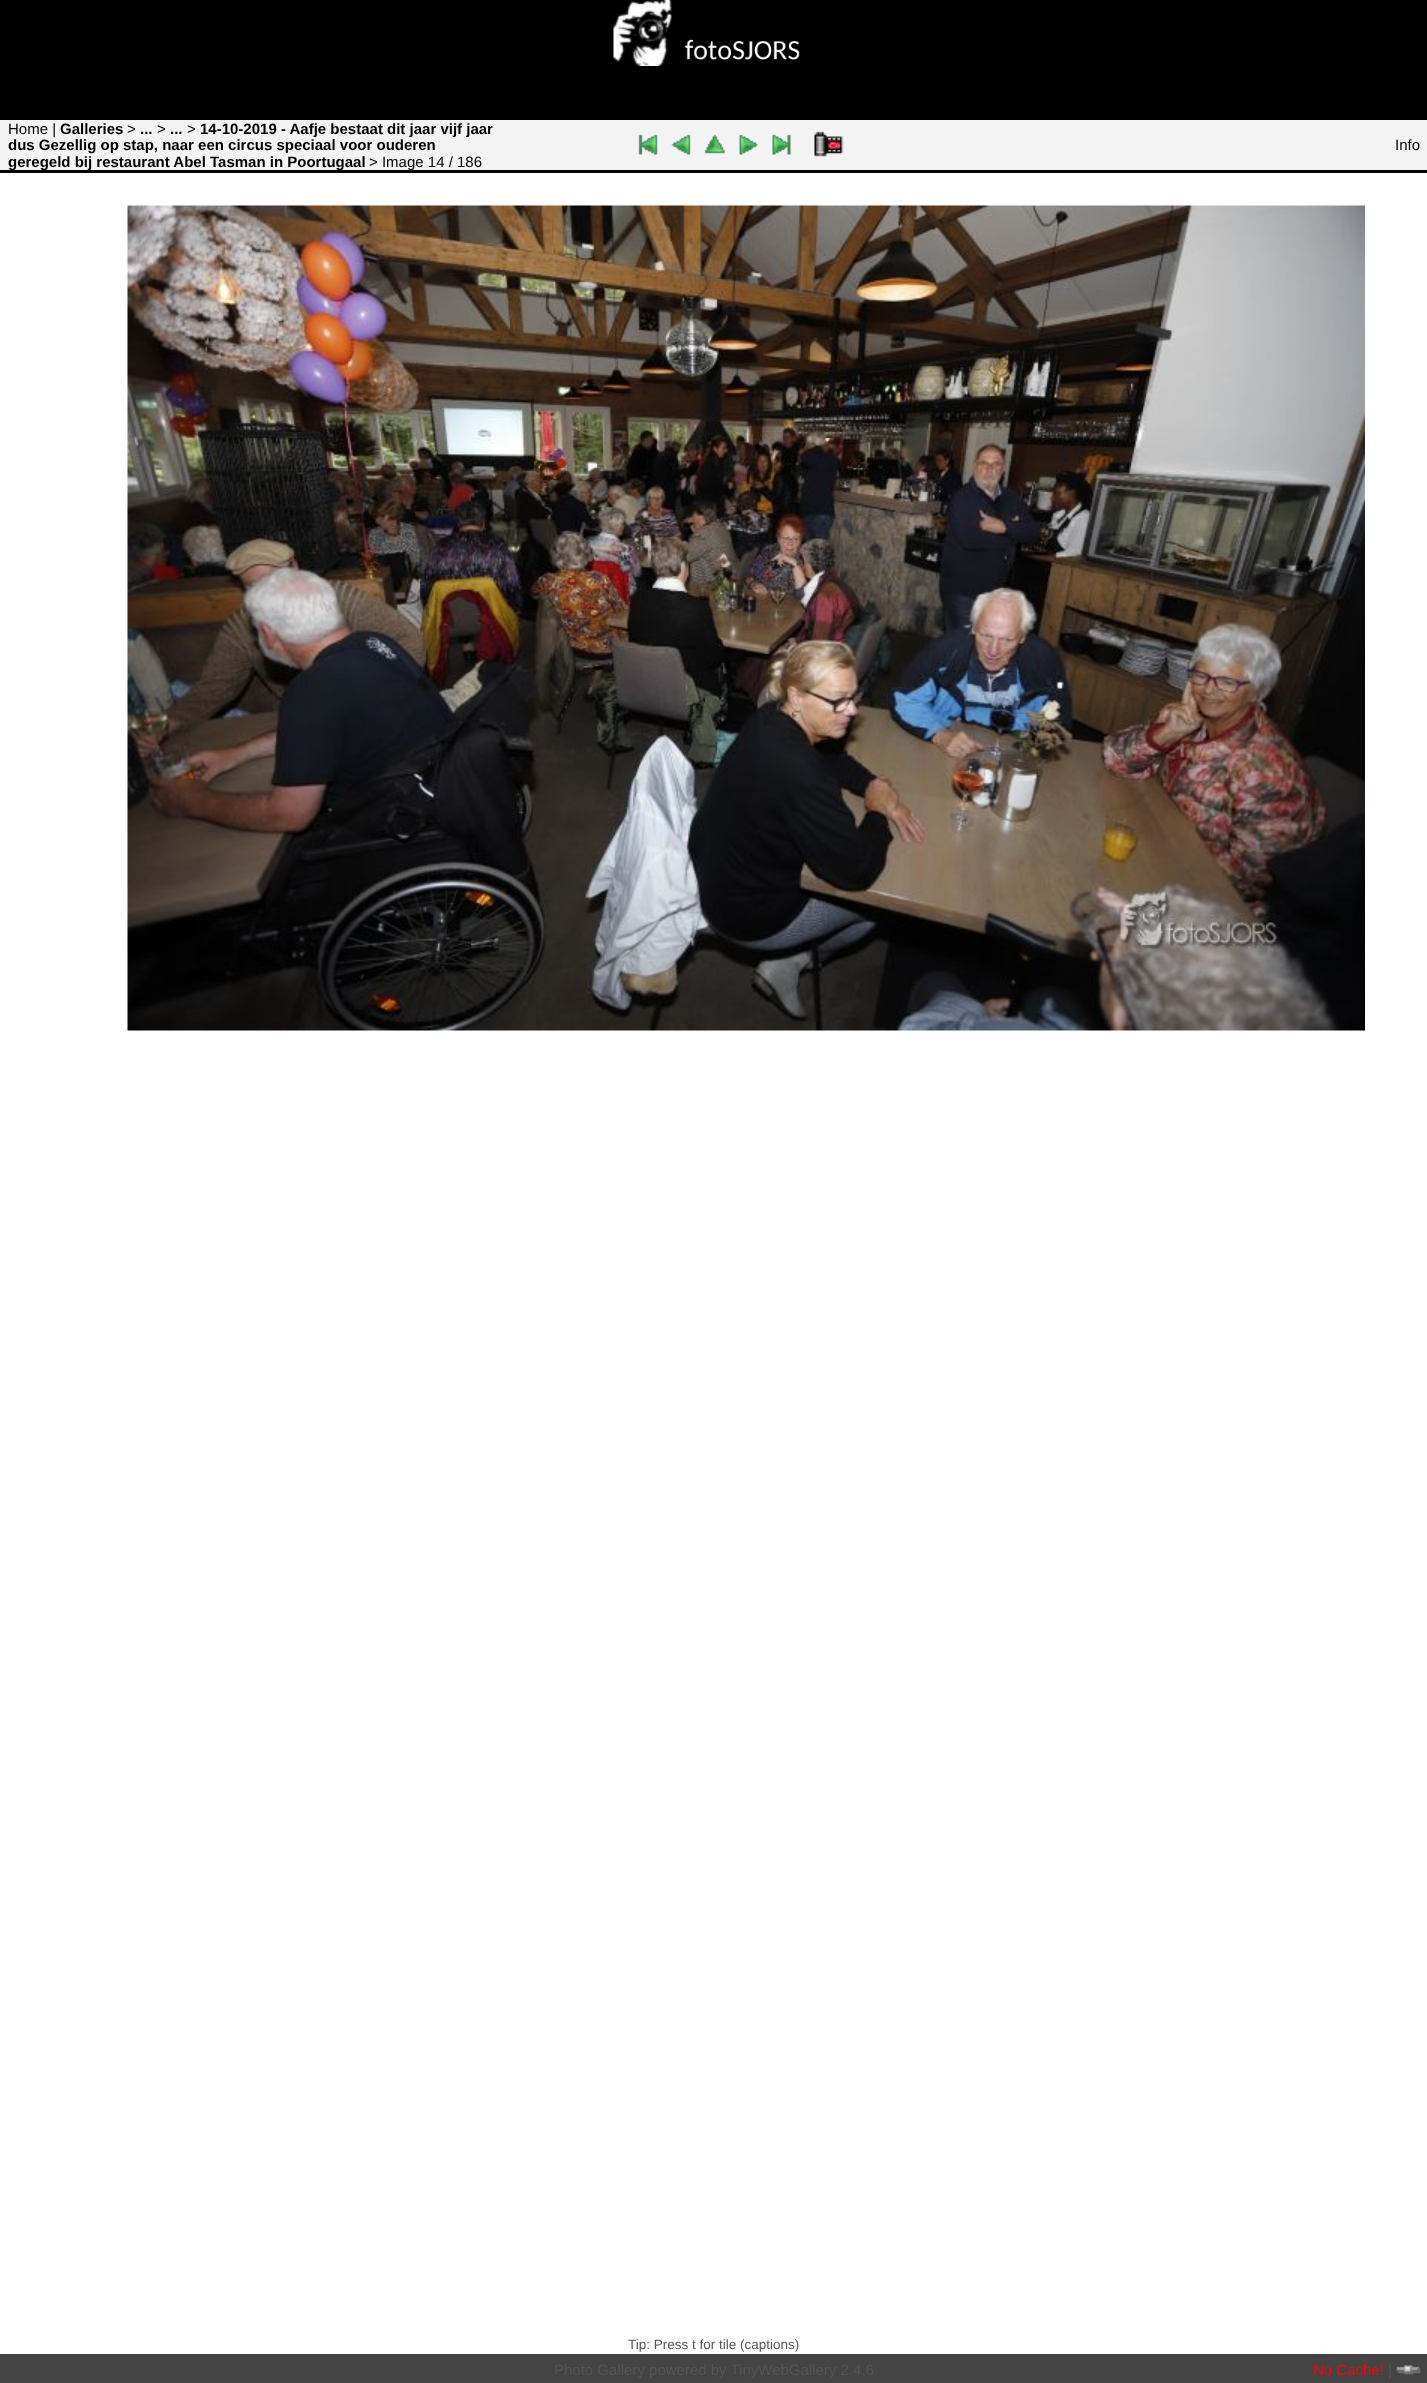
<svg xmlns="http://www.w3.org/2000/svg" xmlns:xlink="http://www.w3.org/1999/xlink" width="1427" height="2383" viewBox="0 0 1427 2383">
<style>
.cls-1{font:15px Liberation Sans;fill:#000000}
.cls-2{font:bold 15px Liberation Sans;fill:#000000}
.cls-3{font:13.5px Liberation Sans;fill:#555555}
.cls-4{font:15px Liberation Sans;fill:#555555}
.cls-5{font:15px Liberation Sans;fill:#ff0000}
</style>
<rect width="100%" height="100%" fill="#000000"/>
<image xlink:href="image0.png" x="613" y="0" width="187" height="66"/>
<rect fill="#f3f3f3" x="0" y="120" width="1427" height="50"/>
<image xlink:href="image1.png" x="638" y="134" width="20" height="21"/>
<image xlink:href="image2.png" x="671" y="134" width="20" height="21"/>
<image xlink:href="image3.png" x="704" y="134" width="21" height="20"/>
<image xlink:href="image4.png" x="739" y="134" width="19" height="21"/>
<image xlink:href="image5.png" x="772" y="134" width="19" height="21"/>
<image xlink:href="image6.png" x="814" y="131" width="30" height="26"/>
<rect fill="#ffffff" x="0" y="173" width="1427" height="2181"/>
<image xlink:href="image7.png" x="127" y="205" width="1238" height="826"/>
<rect fill="#444444" x="0" y="2354" width="1427" height="29"/>
<image xlink:href="image8.png" x="1396" y="2365" width="25" height="10"/>
<text class="cls-1" x="8" y="134">Home |</text>
<text class="cls-2" x="60" y="134">Galleries</text>
<text class="cls-1" x="127" y="134">&gt;</text>
<text class="cls-2" x="140" y="134">...</text>
<text class="cls-1" x="157" y="134">&gt;</text>
<text class="cls-2" x="170" y="134">...</text>
<text class="cls-1" x="187" y="134">&gt;</text>
<text class="cls-2" x="200" y="134">14-10-2019 - Aafje bestaat dit jaar vijf jaar</text>
<text class="cls-2"><tspan x="8" y="150">dus Gezellig op stap, naar een circus speciaal voor ouderen</tspan><tspan x="8" y="167">geregeld bij restaurant Abel Tasman in Poortugaal</tspan></text>
<text class="cls-1" x="369" y="167">&gt; Image 14 / 186</text>
<text class="cls-1" x="1395" y="150">Info</text>
<text class="cls-3" x="628" y="2349">Tip: Press t for tile (captions)</text>
<text class="cls-4" x="554" y="2375">Photo Gallery powered by TinyWebGallery 2.4.6</text>
<text class="cls-5" x="1313" y="2375">No Cache!</text>
<text class="cls-4" x="1388" y="2375">|</text>
</svg>
